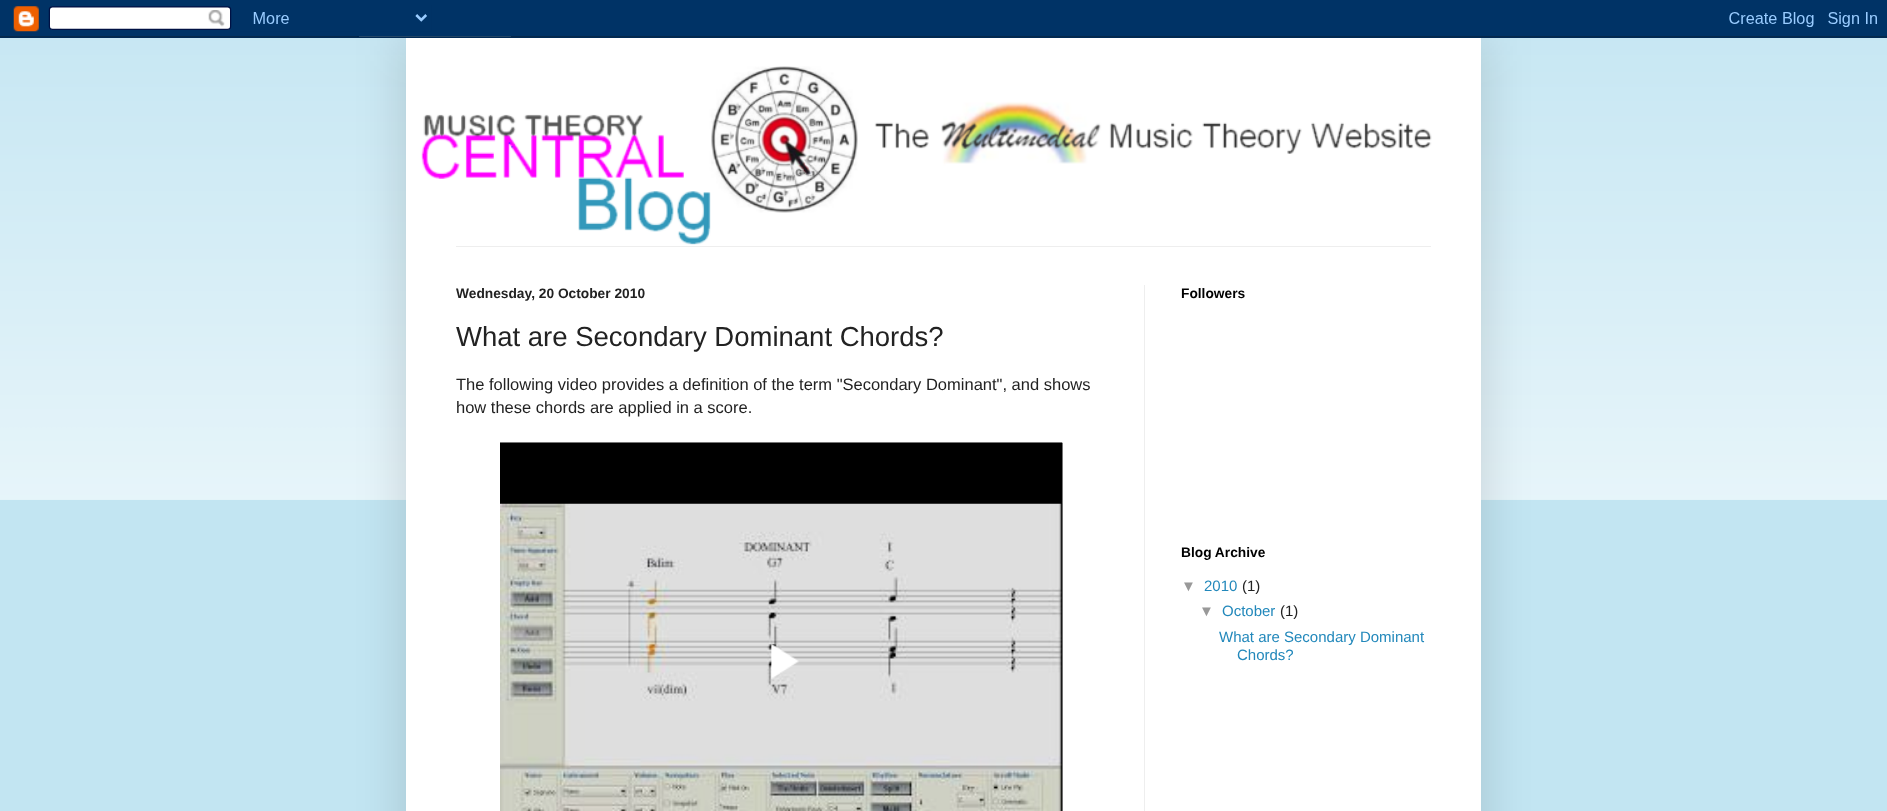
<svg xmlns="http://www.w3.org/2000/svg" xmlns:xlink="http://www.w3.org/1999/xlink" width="1887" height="811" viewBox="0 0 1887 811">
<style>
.cls-1{font:bold 13.75px Liberation Sans;fill:#222222}
.cls-2{font:27.5px Liberation Sans;fill:#222222}
.cls-3{font:16.5px Liberation Sans;fill:#222222}
.cls-4{font:bold 13.75px Liberation Sans;fill:#000000}
.cls-5{font:15px Liberation Sans;fill:#999999}
.cls-6{font:15px Liberation Sans;fill:#2288bb}
.cls-7{font:15px Liberation Sans;fill:#222222}
</style>
<rect width="100%" height="100%" fill="#c2e5f2"/>
<image xlink:href="image1.png" x="0" y="36" width="1887" height="464"/>
<rect fill="#000000" fill-opacity="0.15" filter="blur(25px)" x="406" y="38" width="1075" height="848"/>
<image xlink:href="image0.png" x="0" y="0" width="1887" height="38"/>
<rect fill="#ffffff" x="406" y="38" width="1075" height="773"/>
<image xlink:href="image2.png" x="421" y="66" width="1011" height="179"/>
<rect fill="#eeeeee" x="456" y="246" width="975" height="1"/>
<rect fill="#eeeeee" x="1144" y="285" width="1" height="526"/>
<image xlink:href="image3.png" x="500" y="442" width="563" height="369"/>
<text class="cls-1" x="456" y="298">Wednesday, 20 October 2010</text>
<text class="cls-2" x="456" y="346">What are Secondary Dominant Chords?</text>
<text class="cls-3"><tspan x="456" y="390">The following video provides a definition of the term "Secondary Dominant", and shows</tspan><tspan x="456" y="413">how these chords are applied in a score.</tspan></text>
<text class="cls-4" x="1181" y="298">Followers</text>
<text class="cls-4" x="1181" y="557">Blog Archive</text>
<text class="cls-5" x="1181" y="591">▼</text>
<text class="cls-6" x="1204" y="591">2010</text>
<text class="cls-7" x="1242" y="591">(1)</text>
<text class="cls-5" x="1199" y="616">▼</text>
<text class="cls-6" x="1222" y="616">October</text>
<text class="cls-7" x="1280" y="616">(1)</text>
<text class="cls-6" x="1219" y="642">What are Secondary Dominant</text>
<text class="cls-6" x="1237" y="660">Chords?</text>
</svg>
